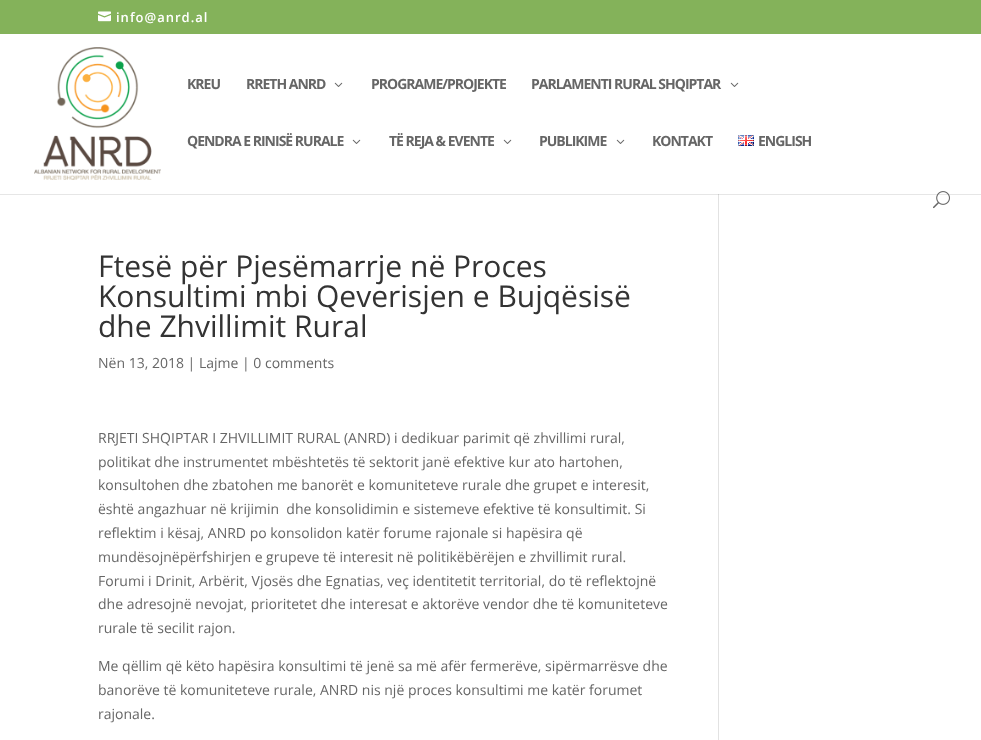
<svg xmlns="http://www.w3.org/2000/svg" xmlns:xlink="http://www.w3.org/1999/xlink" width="981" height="740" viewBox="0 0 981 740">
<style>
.cls-1{font:600 13px Open Sans;letter-spacing:1px;fill:#ffffff}
.cls-2{font:bold 14px Open Sans;letter-spacing:-1px;fill:#666666}
.cls-3{font:30px Open Sans;fill:#333333}
.cls-4{font:14px Open Sans;fill:#666666}
</style>
<rect width="100%" height="100%" fill="#ffffff"/>
<rect fill="#e6e6e6" x="0" y="194" width="981" height="1"/>
<rect fill="#84b25a" x="0" y="0" width="981" height="34"/>
<image xlink:href="image0.png" x="98" y="11" width="13" height="11"/>
<rect fill="#e2e2e2" x="718" y="193" width="1" height="547"/>
<rect fill="#ffffff" x="718" y="193" width="1" height="1"/>
<image xlink:href="image1.png" x="34" y="47" width="127" height="133"/>
<image xlink:href="image2.png" x="334" y="82" width="9" height="5"/>
<image xlink:href="image2.png" x="730" y="82" width="9" height="5"/>
<image xlink:href="image2.png" x="352" y="139" width="9" height="5"/>
<image xlink:href="image2.png" x="503" y="139" width="9" height="5"/>
<image xlink:href="image2.png" x="616" y="139" width="9" height="5"/>
<image xlink:href="image3.png" x="738" y="135" width="16" height="11"/>
<image xlink:href="image4.png" x="933" y="191" width="17" height="18"/>
<rect fill="#cbcbcb" x="718" y="194" width="1" height="1"/>
<text class="cls-1" x="116" y="22">info@anrd.al</text>
<text class="cls-2" x="187" y="89">KREU</text>
<text class="cls-2" x="246" y="89">RRETH ANRD</text>
<text class="cls-2" x="371" y="89">PROGRAME/PROJEKTE</text>
<text class="cls-2" x="531" y="89">PARLAMENTI RURAL SHQIPTAR</text>
<text class="cls-2" x="187" y="146">QENDRA E RINISË RURALE</text>
<text class="cls-2" x="389" y="146">TË REJA &amp; EVENTE</text>
<text class="cls-2" x="539" y="146">PUBLIKIME</text>
<text class="cls-2" x="652" y="146">KONTAKT</text>
<text class="cls-2" x="758" y="146">ENGLISH</text>
<text class="cls-3"><tspan x="98" y="277">Ftesë për Pjesëmarrje në Proces</tspan><tspan x="98" y="307">Konsultimi mbi Qeverisjen e Bujqësisë</tspan><tspan x="98" y="337">dhe Zhvillimit Rural</tspan></text>
<text class="cls-4" x="98" y="368">Nën 13, 2018 | Lajme | 0 comments</text>
<text class="cls-4" xml:space="preserve"><tspan x="98" y="443">RRJETI SHQIPTAR I ZHVILLIMIT RURAL (ANRD) i dedikuar parimit që zhvillimi rural,</tspan><tspan x="98" y="467">politikat dhe instrumentet mbështetës të sektorit janë efektive kur ato hartohen,</tspan><tspan x="98" y="490">konsultohen dhe zbatohen me banorët e komuniteteve rurale dhe grupet e interesit,</tspan><tspan x="98" y="514">është angazhuar në krijimin  dhe konsolidimin e sistemeve efektive të konsultimit. Si</tspan><tspan x="98" y="538">reflektim i kësaj, ANRD po konsolidon katër forume rajonale si hapësira që</tspan><tspan x="98" y="562">mundësojnëpërfshirjen e grupeve të interesit në politikëbërëjen e zhvillimit rural.</tspan><tspan x="98" y="586">Forumi i Drinit, Arbërit, Vjosës dhe Egnatias, veç identitetit territorial, do të reflektojnë</tspan><tspan x="98" y="609">dhe adresojnë nevojat, prioritetet dhe interesat e aktorëve vendor dhe të komuniteteve</tspan><tspan x="98" y="633">rurale të secilit rajon.</tspan></text>
<text class="cls-4"><tspan x="98" y="671">Me qëllim që këto hapësira konsultimi të jenë sa më afër fermerëve, sipërmarrësve dhe</tspan><tspan x="98" y="695">banorëve të komuniteteve rurale, ANRD nis një proces konsultimi me katër forumet</tspan><tspan x="98" y="719">rajonale.</tspan></text>
</svg>
